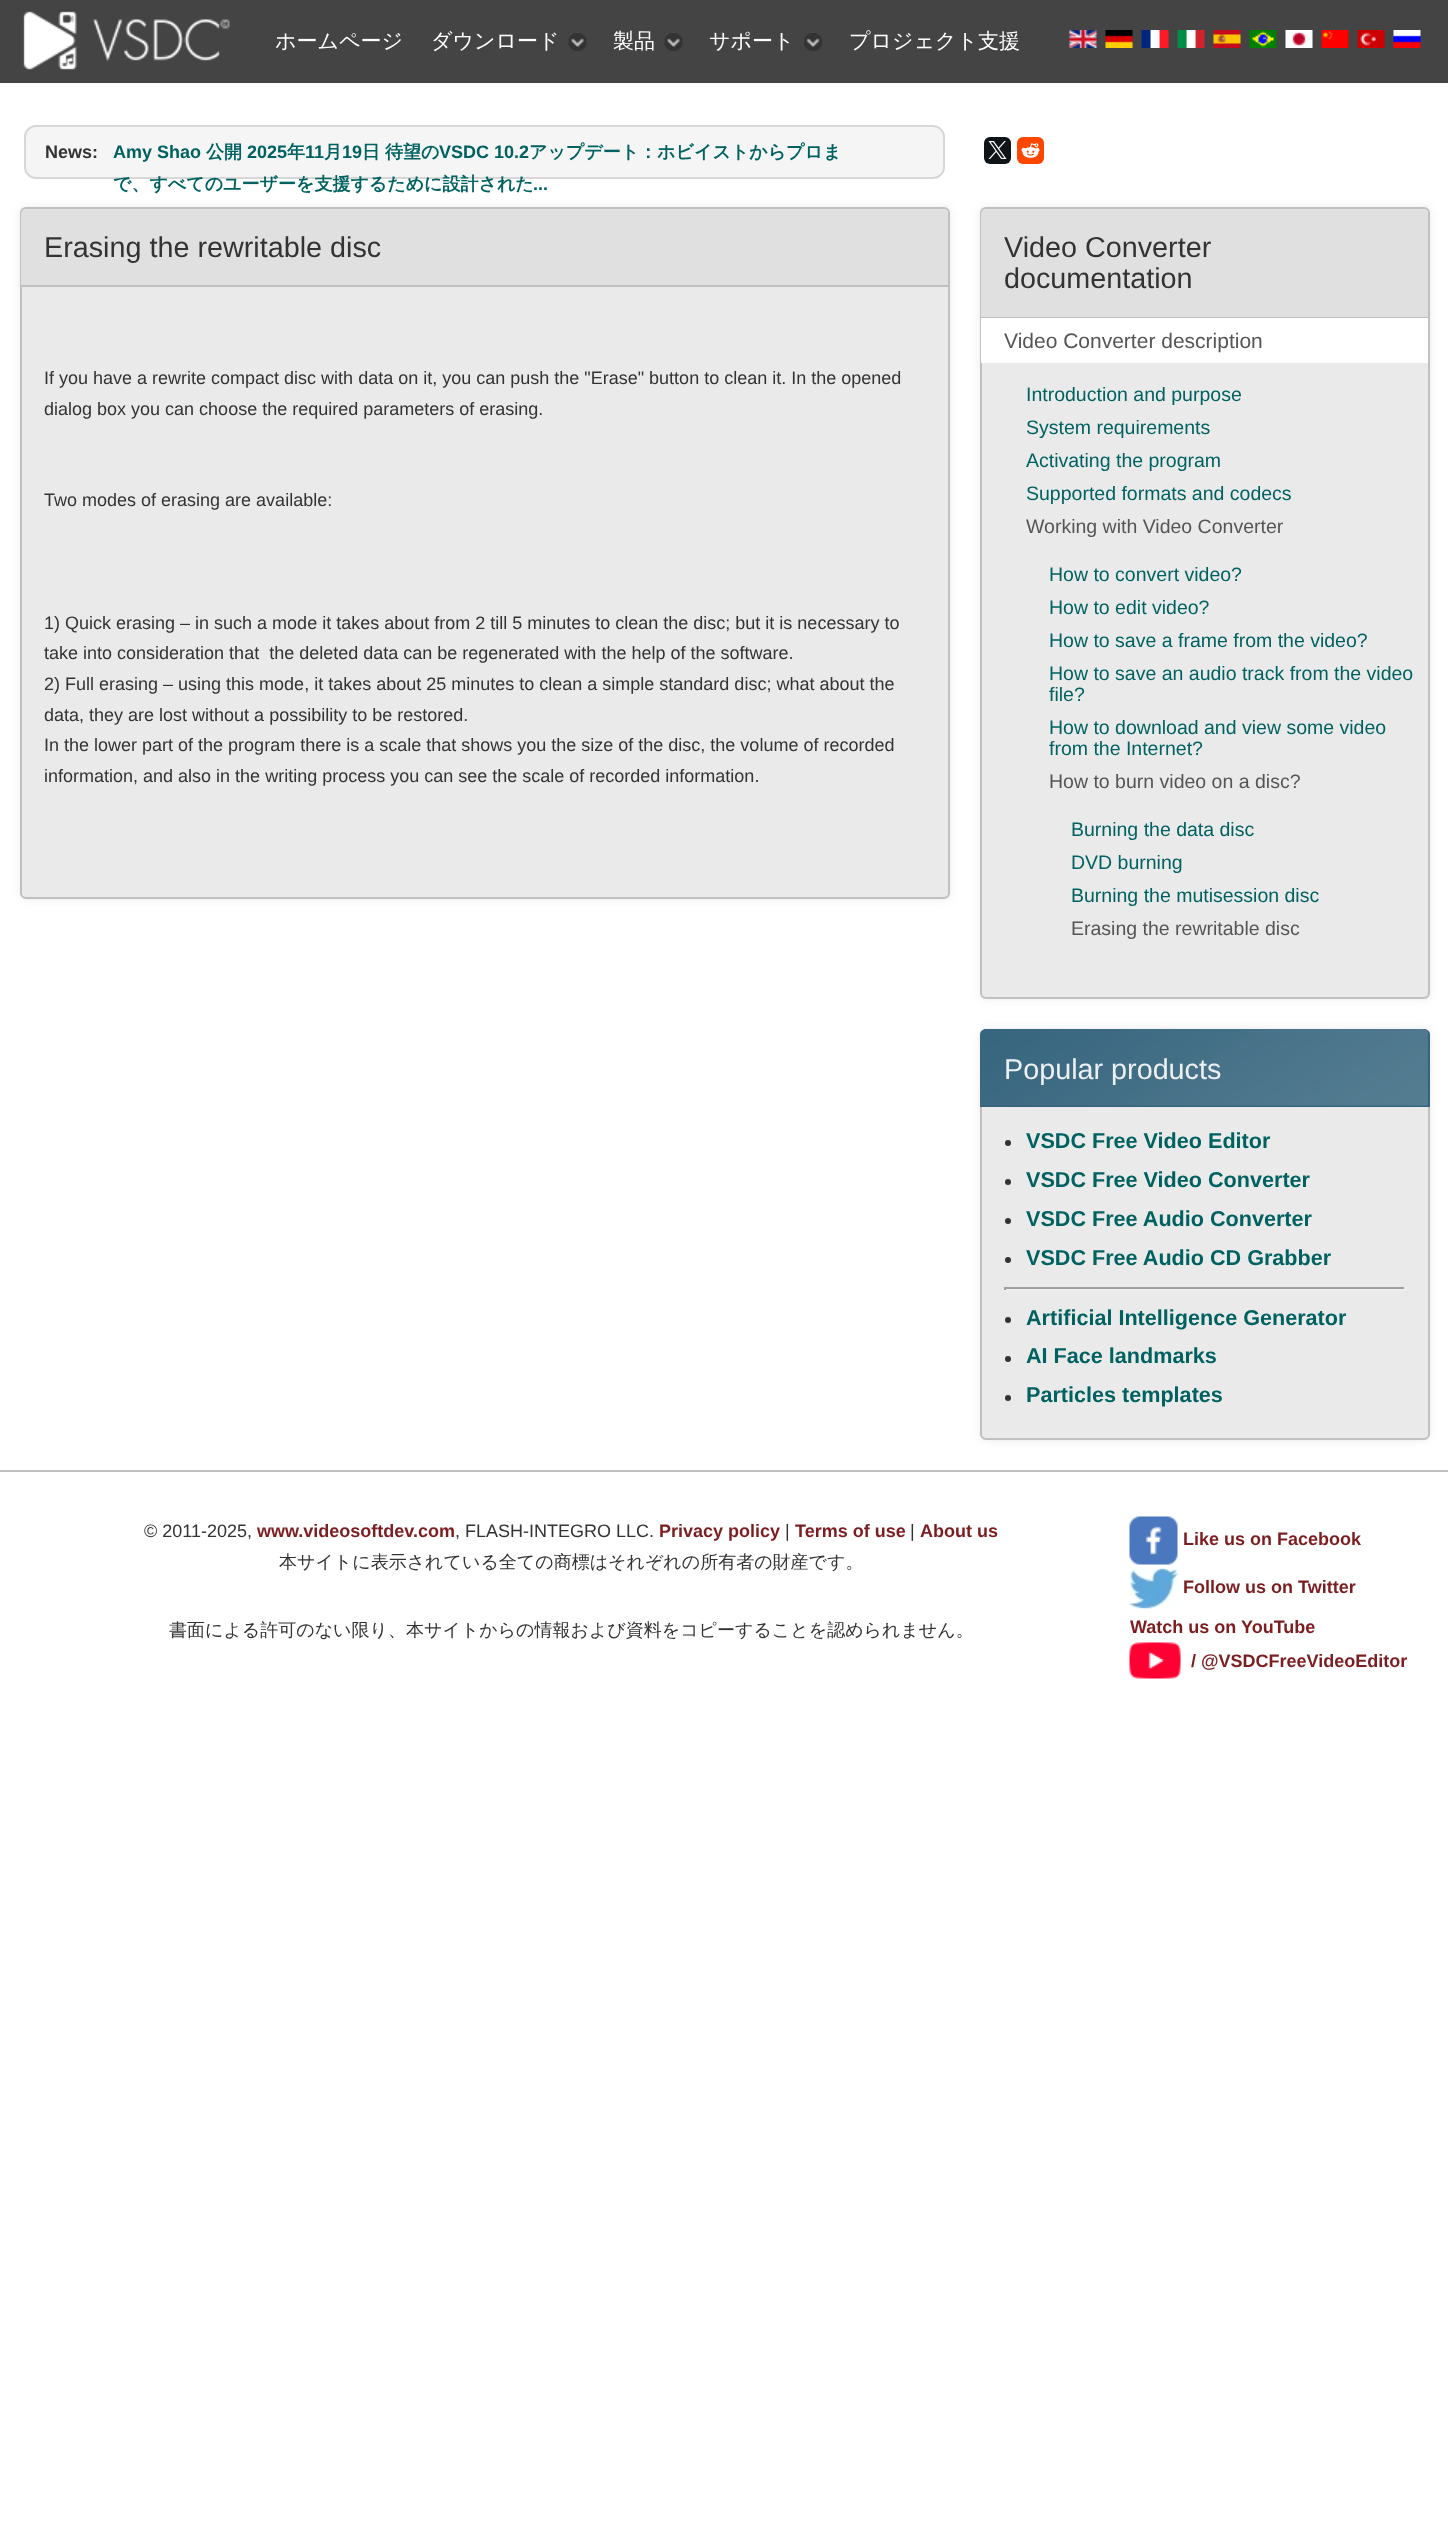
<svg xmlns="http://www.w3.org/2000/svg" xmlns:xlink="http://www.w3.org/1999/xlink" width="1448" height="2545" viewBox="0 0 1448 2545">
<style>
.cls-1{font:500 21px WenQuanYi Zen Hei;fill:#ffffff}
.cls-2{font:bold 18px Liberation Sans;fill:#333333}
.cls-3{font:bold 18px Liberation Sans;fill:#006161}
.cls-4{font:bold 18px WenQuanYi Zen Hei;fill:#006161}
.cls-5{font:28.75px Liberation Sans;fill:#333333}
.cls-6{font:18px Liberation Sans;fill:#333333}
.cls-7{font:21px Liberation Sans;fill:#555555}
.cls-8{font:19.5px Liberation Sans;fill:#006161}
.cls-9{font:19.5px Liberation Sans;fill:#555555}
.cls-10{font:28.75px Liberation Sans;fill:#ecf0f3}
.cls-11{font:bold 21.6px Liberation Sans;fill:#006161}
.cls-12{font:bold 18px Liberation Sans;fill:#7c1e21}
.cls-13{font:500 18px WenQuanYi Zen Hei;fill:#333333}
</style>
<rect width="100%" height="100%" fill="#ffffff"/>
<rect fill="#444444" x="0" y="0" width="1448" height="83"/>
<image xlink:href="image0.png" x="23" y="11" width="207" height="59"/>
<image xlink:href="image1.png" x="568" y="33" width="19" height="18"/>
<image xlink:href="image1.png" x="664" y="33" width="19" height="18"/>
<image xlink:href="image2.png" x="804" y="33" width="18" height="18"/>
<image xlink:href="image3.png" x="1069" y="30" width="28" height="18"/>
<image xlink:href="image4.png" x="1105" y="30" width="28" height="18"/>
<image xlink:href="image5.png" x="1141" y="30" width="28" height="18"/>
<image xlink:href="image6.png" x="1177" y="30" width="28" height="18"/>
<image xlink:href="image7.png" x="1213" y="30" width="28" height="18"/>
<image xlink:href="image8.png" x="1249" y="30" width="28" height="18"/>
<image xlink:href="image9.png" x="1285" y="30" width="28" height="18"/>
<image xlink:href="image10.png" x="1321" y="30" width="28" height="18"/>
<image xlink:href="image11.png" x="1357" y="30" width="28" height="18"/>
<image xlink:href="image12.png" x="1393" y="30" width="28" height="18"/>
<rect fill="#c0c0c0" x="0" y="1470" width="1448" height="2"/>
<rect fill="#f5f5f5" stroke="#d7d7d7" stroke-width="2" x="25" y="126" width="919" height="52" rx="11"/>
<rect fill="#0f1419" x="984" y="137" width="27" height="27" rx="6"/>
<image xlink:href="image13.png" x="988" y="141" width="19" height="18"/>
<rect fill="#ff4500" x="1017" y="137" width="27" height="27" rx="6"/>
<image xlink:href="image14.png" x="1021" y="143" width="19" height="15"/>
<rect fill="#333333" fill-opacity="0.1" filter="blur(4px)" x="20" y="207" width="930" height="692" rx="6"/>
<rect fill="#eaeaea" stroke="#c0c0c0" stroke-width="2" x="21" y="208" width="928" height="690" rx="5"/>
<path fill="#e0e0e0" d="M27 209H942C945.5 209 948 211.5 948 215V287H21V215C21 211.5 23.5 209 27 209Z"/>
<rect fill="#c0c0c0" x="21" y="285" width="927" height="2"/>
<rect fill="#333333" fill-opacity="0.1" filter="blur(4px)" x="980" y="207" width="450" height="792" rx="6"/>
<rect fill="#eaeaea" stroke="#c0c0c0" stroke-width="2" x="981" y="208" width="448" height="790" rx="5"/>
<path fill="#e0e0e0" d="M987 209H1422C1425.5 209 1428 211.5 1428 215V318H981V215C981 211.5 983.5 209 987 209Z"/>
<rect fill="#c0c0c0" x="981" y="317" width="447" height="1"/>
<rect fill="#ffffff" x="981" y="318" width="447" height="45"/>
<rect fill="#333333" fill-opacity="0.1" filter="blur(4px)" x="980" y="1029" width="450" height="411" rx="6"/>
<rect fill="#eaeaea" stroke="#c0c0c0" stroke-width="2" x="981" y="1030" width="448" height="409" rx="5"/>
<path fill="#33637c" d="M986 1029H1424C1427.5 1029 1430 1031.5 1430 1035V1107H980V1035C980 1031.5 982.5 1029 986 1029Z"/>
<image xlink:href="image15.png" x="980" y="1029" width="449" height="77"/>
<circle fill="#333333" cx="1008" cy="1143" r="3"/>
<circle fill="#333333" cx="1008" cy="1182" r="3"/>
<circle fill="#333333" cx="1008" cy="1221" r="3"/>
<circle fill="#333333" cx="1008" cy="1260" r="3"/>
<rect fill="#9f9f9f" x="1004" y="1287" width="402" height="2"/>
<rect fill="#eeeeee" x="1404" y="1287" width="2" height="3"/>
<rect fill="#eeeeee" x="1004" y="1289" width="402" height="2"/>
<rect fill="#9f9f9f" x="1004" y="1287" width="2" height="3"/>
<circle fill="#333333" cx="1008" cy="1320" r="3"/>
<circle fill="#333333" cx="1008" cy="1359" r="3"/>
<circle fill="#333333" cx="1008" cy="1398" r="3"/>
<image xlink:href="image16.png" x="1129" y="1516" width="49" height="49"/>
<image xlink:href="image17.png" x="1129" y="1568" width="49" height="41"/>
<image xlink:href="image18.png" x="1129" y="1642" width="52" height="37"/>
<text class="cls-1" x="275" y="48">ホームページ</text>
<text class="cls-1" x="431" y="48">ダウンロード</text>
<text class="cls-1" x="613" y="48">製品</text>
<text class="cls-1" x="709" y="48">サポート</text>
<text class="cls-1" x="849" y="48">プロジェクト支援</text>
<text class="cls-2" x="45" y="158">News:</text>
<text class="cls-3" x="113" y="158">Amy Shao</text>
<text class="cls-4" x="206" y="158">公開</text>
<text class="cls-3" x="247" y="158">2025</text>
<text class="cls-4" x="287" y="158">年</text>
<text class="cls-3" x="305" y="158">11</text>
<text class="cls-4" x="324" y="158">月</text>
<text class="cls-3" x="342" y="158">19</text>
<text class="cls-4" x="362" y="158">日</text>
<text class="cls-4" x="385" y="158">待望の</text>
<text class="cls-3" x="439" y="158">VSDC 10.2</text>
<text class="cls-4" x="529" y="158">アップデート：ホビイストからプロま</text>
<text class="cls-4" x="113" y="190">で、すべてのユーザーを支援するために設計された</text>
<text class="cls-3" x="533" y="190">...</text>
<text class="cls-5" x="44" y="257">Erasing the rewritable disc</text>
<text class="cls-6"><tspan x="44" y="384">If you have a rewrite compact disc with data on it, you can push the "Erase" button to clean it. In the opened</tspan><tspan x="44" y="415">dialog box you can choose the required parameters of erasing.</tspan></text>
<text class="cls-6" x="44" y="506">Two modes of erasing are available:</text>
<text class="cls-6" xml:space="preserve"><tspan x="44" y="629">1) Quick erasing – in such a mode it takes about from 2 till 5 minutes to clean the disc; but it is necessary to</tspan><tspan x="44" y="659">take into consideration that  the deleted data can be regenerated with the help of the software.</tspan><tspan x="44" y="690">2) Full erasing – using this mode, it takes about 25 minutes to clean a simple standard disc; what about the</tspan><tspan x="44" y="721">data, they are lost without a possibility to be restored.</tspan><tspan x="44" y="751">In the lower part of the program there is a scale that shows you the size of the disc, the volume of recorded</tspan><tspan x="44" y="782">information, and also in the writing process you can see the scale of recorded information.</tspan></text>
<text class="cls-5"><tspan x="1004" y="257">Video Converter</tspan><tspan x="1004" y="288">documentation</tspan></text>
<text class="cls-7" x="1004" y="348">Video Converter description</text>
<text class="cls-8"><tspan x="1026" y="401">Introduction and purpose</tspan><tspan x="1026" y="434">System requirements</tspan><tspan x="1026" y="467">Activating the program</tspan><tspan x="1026" y="500">Supported formats and codecs</tspan></text>
<text class="cls-9" x="1026" y="533">Working with Video Converter</text>
<text class="cls-8"><tspan x="1049" y="581">How to convert video?</tspan><tspan x="1049" y="614">How to edit video?</tspan><tspan x="1049" y="647">How to save a frame from the video?</tspan><tspan x="1049" y="680">How to save an audio track from the video</tspan><tspan x="1049" y="701">file?</tspan><tspan x="1049" y="734">How to download and view some video</tspan><tspan x="1049" y="755">from the Internet?</tspan></text>
<text class="cls-9" x="1049" y="788">How to burn video on a disc?</text>
<text class="cls-8"><tspan x="1071" y="836">Burning the data disc</tspan><tspan x="1071" y="869">DVD burning</tspan><tspan x="1071" y="902">Burning the mutisession disc</tspan></text>
<text class="cls-9" x="1071" y="935">Erasing the rewritable disc</text>
<text class="cls-10" x="1004" y="1079">Popular products</text>
<text class="cls-11"><tspan x="1026" y="1148">VSDC Free Video Editor</tspan><tspan x="1026" y="1187">VSDC Free Video Converter</tspan><tspan x="1026" y="1226">VSDC Free Audio Converter</tspan><tspan x="1026" y="1265">VSDC Free Audio CD Grabber</tspan></text>
<text class="cls-11"><tspan x="1026" y="1325">Artificial Intelligence Generator</tspan><tspan x="1026" y="1363">AI Face landmarks</tspan><tspan x="1026" y="1402">Particles templates</tspan></text>
<text class="cls-6" x="144" y="1537">© 2011-2025,</text>
<text class="cls-12" x="257" y="1537">www.videosoftdev.com</text>
<text class="cls-6" x="455" y="1537">, FLASH-INTEGRO LLC.</text>
<text class="cls-12" x="659" y="1537">Privacy policy</text>
<text class="cls-6" x="785" y="1537">|</text>
<text class="cls-12" x="795" y="1537">Terms of use</text>
<text class="cls-6" x="910" y="1537">|</text>
<text class="cls-12" x="920" y="1537">About us</text>
<text class="cls-13" x="279" y="1568">本サイトに表示されている全ての商標はそれぞれの所有者の財産です。</text>
<text class="cls-13" x="169" y="1636">書面による許可のない限り、本サイトからの情報および資料をコピーすることを認められません。</text>
<text class="cls-12" x="1183" y="1545">Like us on Facebook</text>
<text class="cls-12" x="1183" y="1593">Follow us on Twitter</text>
<text class="cls-12" x="1130" y="1633">Watch us on YouTube</text>
<text class="cls-12" x="1191" y="1667">/ @VSDCFreeVideoEditor</text>
</svg>
